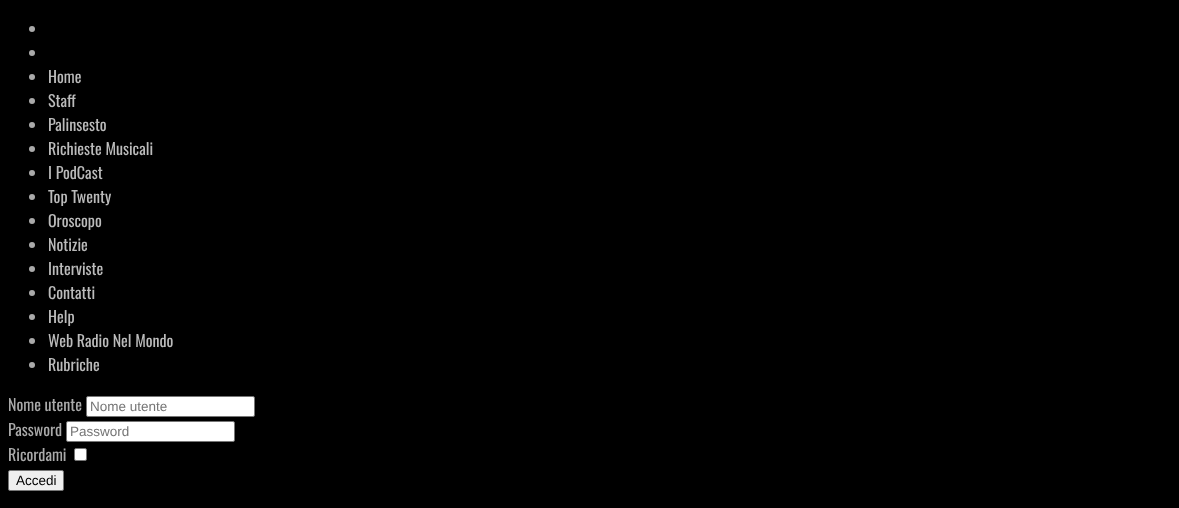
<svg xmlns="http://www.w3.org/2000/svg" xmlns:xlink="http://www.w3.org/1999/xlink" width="1179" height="508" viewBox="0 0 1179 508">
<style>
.cls-1{font:16px Oswald;fill:#bbbbbb}
.cls-2{font:16px Oswald;fill:#aaaaaa}
.cls-3{font:13.5px Liberation Sans;fill:#757575}
.cls-4{font:13.5px Liberation Sans;fill:#000000}
</style>
<rect width="100%" height="100%" fill="#000000"/>
<circle fill="#aaaaaa" cx="32" cy="29" r="3"/>
<circle fill="#aaaaaa" cx="32" cy="53" r="3"/>
<circle fill="#aaaaaa" cx="32" cy="77" r="3"/>
<circle fill="#aaaaaa" cx="32" cy="101" r="3"/>
<circle fill="#aaaaaa" cx="32" cy="125" r="3"/>
<circle fill="#aaaaaa" cx="32" cy="149" r="3"/>
<circle fill="#aaaaaa" cx="32" cy="173" r="3"/>
<circle fill="#aaaaaa" cx="32" cy="197" r="3"/>
<circle fill="#aaaaaa" cx="32" cy="221" r="3"/>
<circle fill="#aaaaaa" cx="32" cy="245" r="3"/>
<circle fill="#aaaaaa" cx="32" cy="269" r="3"/>
<circle fill="#aaaaaa" cx="32" cy="293" r="3"/>
<circle fill="#aaaaaa" cx="32" cy="317" r="3"/>
<circle fill="#aaaaaa" cx="32" cy="341" r="3"/>
<circle fill="#aaaaaa" cx="32" cy="365" r="3"/>
<rect fill="#ffffff" stroke="#767676" x="86.5" y="396.5" width="168" height="20" rx="1.5"/>
<rect fill="#ffffff" stroke="#767676" x="66.5" y="421.5" width="168" height="20" rx="1.5"/>
<rect fill="#ffffff" stroke="#767676" x="74.5" y="448.5" width="12" height="12" rx="1.5"/>
<rect fill="#efefef" stroke="#767676" x="8.5" y="470.5" width="55" height="20" rx="1.5"/>
<text class="cls-1"><tspan x="48" y="83">Home</tspan><tspan x="48" y="107">Staff</tspan><tspan x="48" y="131">Palinsesto</tspan><tspan x="48" y="155">Richieste Musicali</tspan><tspan x="48" y="179">I PodCast</tspan><tspan x="48" y="203">Top Twenty</tspan><tspan x="48" y="227">Oroscopo</tspan><tspan x="48" y="251">Notizie</tspan><tspan x="48" y="275">Interviste</tspan><tspan x="48" y="299">Contatti</tspan><tspan x="48" y="323">Help</tspan><tspan x="48" y="347">Web Radio Nel Mondo</tspan><tspan x="48" y="371">Rubriche</tspan></text>
<text class="cls-2" x="8" y="411">Nome utente</text>
<text class="cls-3" x="90" y="411">Nome utente</text>
<text class="cls-2" x="8" y="436">Password</text>
<text class="cls-3" x="70" y="436">Password</text>
<text class="cls-2" x="8" y="461">Ricordami</text>
<text class="cls-4" x="16" y="485">Accedi</text>
</svg>
